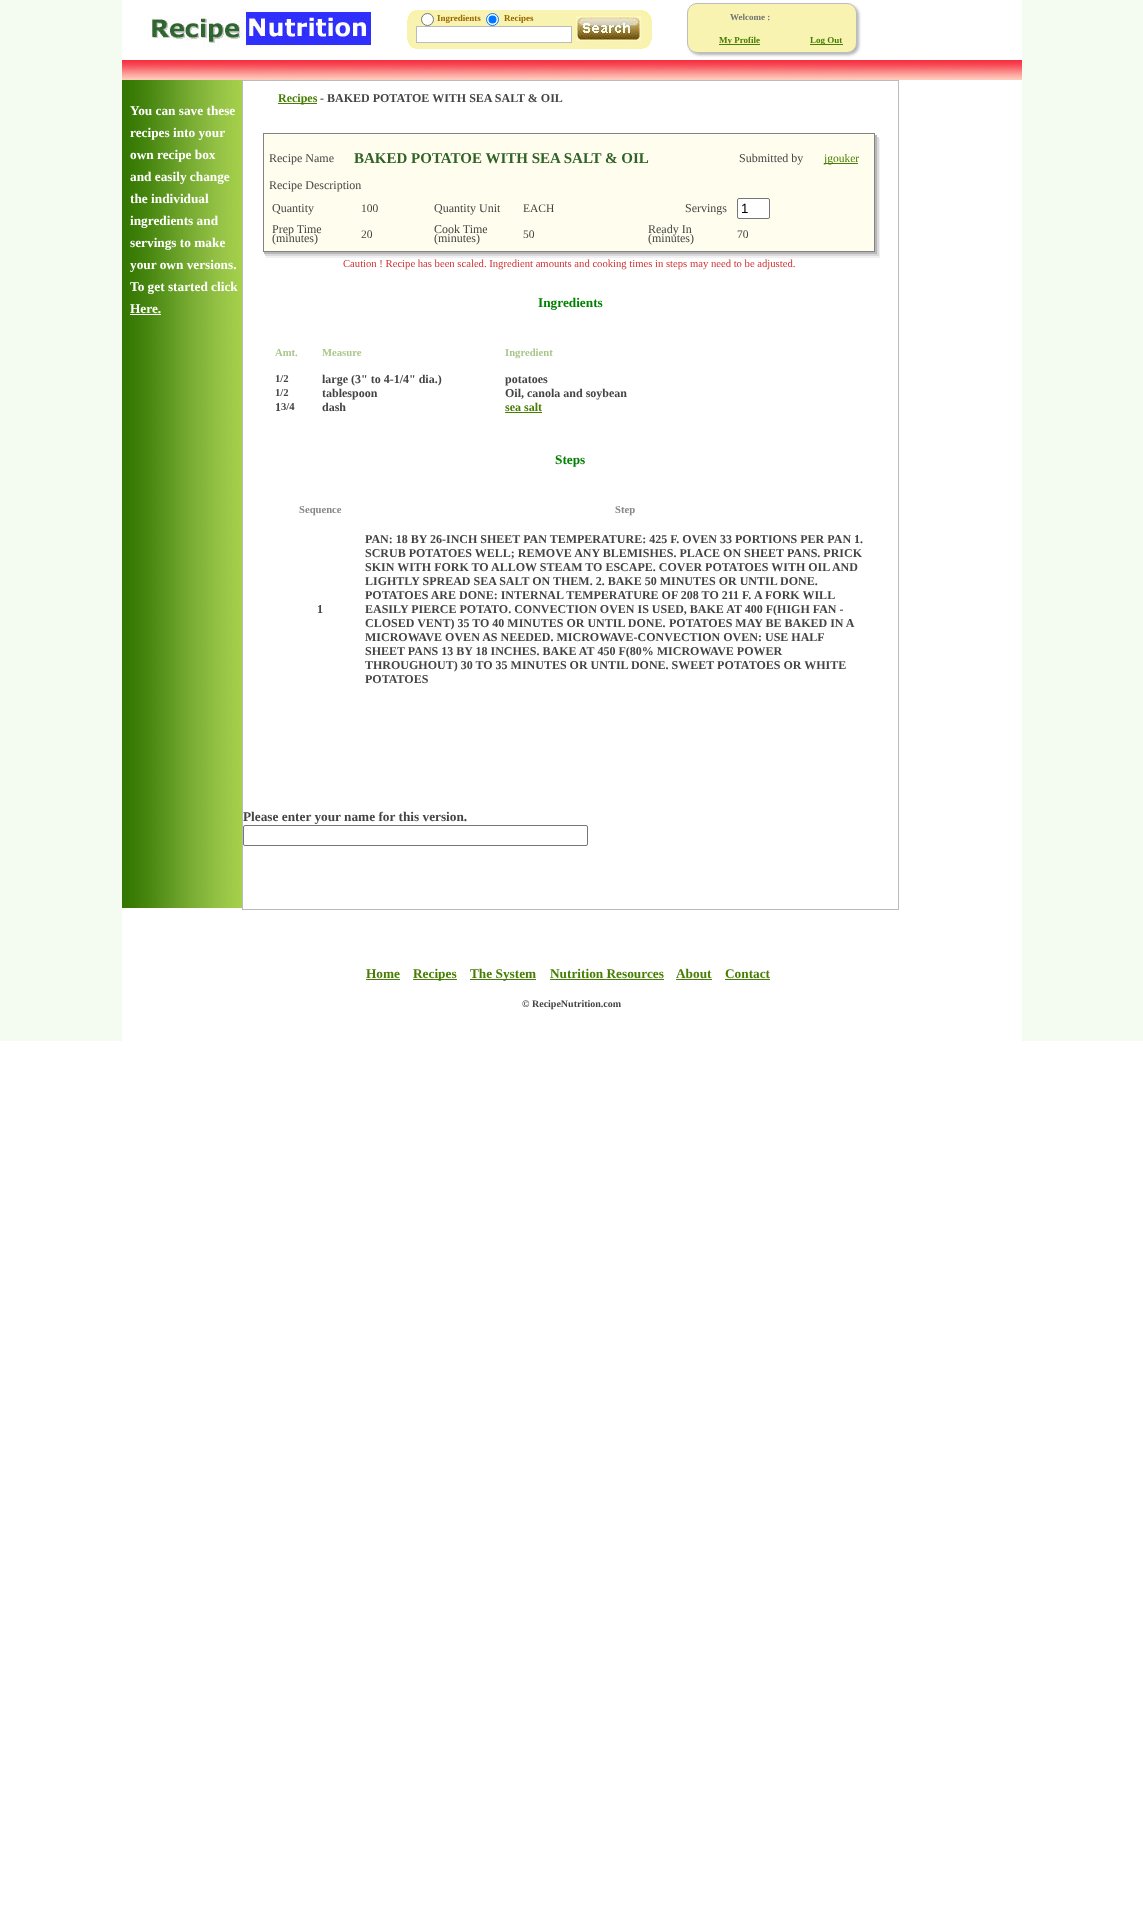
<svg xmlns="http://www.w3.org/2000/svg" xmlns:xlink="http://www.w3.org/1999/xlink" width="1143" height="1929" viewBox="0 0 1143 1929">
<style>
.cls-1{font:bold 9px Liberation Serif;fill:#986701}
.cls-2{font:bold 9px Liberation Serif;fill:#747474}
.cls-3{font:bold 9px Liberation Serif;fill:#477d03}
.cls-4{font:bold 13.3px Liberation Serif;fill:#ffffff}
.cls-5{font:bold 12px Liberation Serif;fill:#477d03}
.cls-6{font:bold 12px Liberation Serif;fill:#444444}
.cls-7{font:12px Liberation Serif;fill:#444444}
.cls-8{font:bold 15px Liberation Serif;fill:#316227}
.cls-9{font:11.5px Liberation Serif;fill:#477d03}
.cls-10{font:11.5px Liberation Serif;fill:#444444}
.cls-11{font:13.3px Liberation Sans;fill:#000000}
.cls-12{font:10.65px Liberation Serif;fill:#cc3333}
.cls-13{font:bold 13.3px Liberation Serif;fill:#008000}
.cls-14{font:bold 10.65px Liberation Serif;fill:#aac78b}
.cls-15{font:bold 10.65px Liberation Serif;fill:#444444}
.cls-16{font:bold 10.65px Liberation Serif;fill:#898786}
.cls-17{font:bold 13.3px Liberation Serif;fill:#444444}
.cls-18{font:bold 13.3px Liberation Serif;fill:#477d03}
.cls-19{font:bold 10px Liberation Serif;fill:#444444}
</style>
<rect width="100%" height="100%" fill="#ffffff"/>
<rect fill="#f4fcf1" x="0" y="0" width="1143" height="1041"/>
<rect fill="#ffffff" x="122" y="0" width="900" height="1041"/>
<image xlink:href="image0.png" x="147" y="8" width="224" height="40"/>
<image xlink:href="image1.png" x="407" y="10" width="9" height="39"/>
<rect fill="#f9f3b1" x="416" y="10" width="225" height="39"/>
<circle fill="#ffffff" stroke="#767676" cx="427.5" cy="19.5" r="6"/>
<circle fill="#ffffff" stroke="#0075ff" cx="492.5" cy="19.5" r="6"/>
<circle fill="#0075ff" cx="492.5" cy="19.5" r="4"/>
<rect fill="#ffffff" stroke="#bbbbbb" x="416.5" y="26.5" width="155" height="16"/>
<image xlink:href="image2.png" x="576" y="16" width="65" height="25"/>
<image xlink:href="image3.png" x="641" y="10" width="11" height="39"/>
<image xlink:href="image4.png" x="122" y="60" width="900" height="20"/>
<rect fill="#b3b4b6" filter="blur(1.5px)" x="689" y="5" width="170" height="50" rx="10"/>
<rect fill="#f9f3b1" stroke="#bbbdbf" x="687.5" y="3.5" width="169" height="49" rx="9.5"/>
<rect fill="#477d03" x="719" y="44" width="41" height="1"/>
<rect fill="#477d03" x="810" y="44" width="33" height="1"/>
<image xlink:href="image5.png" x="122" y="80" width="120" height="828"/>
<rect fill="#ffffff" x="130" y="314" width="31" height="1"/>
<rect fill="none" stroke="#bbbbbb" x="242.5" y="80.5" width="656" height="829"/>
<rect fill="#477d03" x="278" y="103" width="39" height="1"/>
<rect fill="#f1f0f1" x="266" y="139" width="614" height="119"/>
<rect fill="#dbdadb" x="265" y="137" width="614" height="119"/>
<rect fill="#b8b6b8" x="264" y="135" width="613" height="119"/>
<rect fill="none" stroke="#848284" x="263.5" y="133.5" width="611" height="118"/>
<rect fill="#fffded" x="264" y="134" width="610" height="117"/>
<rect fill="#477d03" x="824" y="163" width="34" height="1"/>
<rect fill="#ffffff" stroke="#767676" x="737.5" y="198.5" width="32" height="20" rx="1.5"/>
<rect fill="#477d03" x="505" y="412" width="37" height="1"/>
<rect fill="none" stroke="#767676" x="243.5" y="825.5" width="344" height="20" rx="1.5"/>
<rect fill="#477d03" x="366" y="979" width="34" height="1"/>
<rect fill="#477d03" x="413" y="979" width="44" height="1"/>
<rect fill="#477d03" x="470" y="979" width="66" height="1"/>
<rect fill="#477d03" x="550" y="979" width="114" height="1"/>
<rect fill="#477d03" x="676" y="979" width="36" height="1"/>
<rect fill="#477d03" x="725" y="979" width="45" height="1"/>
<text class="cls-1" x="437" y="21">Ingredients</text>
<text class="cls-1" x="504" y="21">Recipes</text>
<text class="cls-2" x="730" y="20">Welcome :</text>
<text class="cls-3" x="719" y="43">My Profile</text>
<text class="cls-3" x="810" y="43">Log Out</text>
<text class="cls-4"><tspan x="130" y="115">You can save these</tspan><tspan x="130" y="137">recipes into your</tspan><tspan x="130" y="159">own recipe box</tspan><tspan x="130" y="181">and easily change</tspan><tspan x="130" y="203">the individual</tspan><tspan x="130" y="225">ingredients and</tspan><tspan x="130" y="247">servings to make</tspan><tspan x="130" y="269">your own versions.</tspan><tspan x="130" y="291">To get started click</tspan><tspan x="130" y="313">Here.</tspan></text>
<text class="cls-5" x="278" y="102">Recipes</text>
<text class="cls-6" x="320" y="102">- BAKED POTATOE WITH SEA SALT &amp; OIL</text>
<text class="cls-7" x="269" y="162">Recipe Name</text>
<text class="cls-8" x="354" y="163">BAKED POTATOE WITH SEA SALT &amp; OIL</text>
<text class="cls-7" x="739" y="162">Submitted by</text>
<text class="cls-9" x="824" y="162">jgouker</text>
<text class="cls-7" x="269" y="189">Recipe Description</text>
<text class="cls-7" x="272" y="212">Quantity</text>
<text class="cls-10" x="361" y="212">100</text>
<text class="cls-7" x="434" y="212">Quantity Unit</text>
<text class="cls-10" x="523" y="212">EACH</text>
<text class="cls-7" x="685" y="212">Servings</text>
<text class="cls-11" x="741" y="213">1</text>
<text class="cls-7"><tspan x="272" y="233">Prep Time</tspan><tspan x="272" y="242">(minutes)</tspan></text>
<text class="cls-10" x="361" y="238">20</text>
<text class="cls-7"><tspan x="434" y="233">Cook Time</tspan><tspan x="434" y="242">(minutes)</tspan></text>
<text class="cls-10" x="523" y="238">50</text>
<text class="cls-7"><tspan x="648" y="233">Ready In</tspan><tspan x="648" y="242">(minutes)</tspan></text>
<text class="cls-10" x="737" y="238">70</text>
<text class="cls-12" x="343" y="267">Caution ! Recipe has been scaled. Ingredient amounts and cooking times in steps may need to be adjusted.</text>
<text class="cls-13" x="538" y="307">Ingredients</text>
<text class="cls-14" x="275" y="356">Amt.</text>
<text class="cls-14" x="322" y="356">Measure</text>
<text class="cls-14" x="505" y="356">Ingredient</text>
<text class="cls-15" x="275" y="382">1/2</text>
<text class="cls-6" x="322" y="383">large (3" to 4-1/4" dia.)</text>
<text class="cls-6" x="505" y="383">potatoes</text>
<text class="cls-15" x="275" y="396">1/2</text>
<text class="cls-6" x="322" y="397">tablespoon</text>
<text class="cls-6" x="505" y="397">Oil, canola and soybean</text>
<text class="cls-6" x="275" y="411">1</text>
<text class="cls-15" x="281" y="410">3/4</text>
<text class="cls-6" x="322" y="411">dash</text>
<text class="cls-5" x="505" y="411">sea salt</text>
<text class="cls-13" x="555" y="464">Steps</text>
<text class="cls-16" x="299" y="513">Sequence</text>
<text class="cls-16" x="615" y="513">Step</text>
<text class="cls-6" x="317" y="613">1</text>
<text class="cls-6"><tspan x="365" y="543">PAN: 18 BY 26-INCH SHEET PAN TEMPERATURE: 425 F. OVEN 33 PORTIONS PER PAN 1.</tspan><tspan x="365" y="557">SCRUB POTATOES WELL; REMOVE ANY BLEMISHES. PLACE ON SHEET PANS. PRICK</tspan><tspan x="365" y="571">SKIN WITH FORK TO ALLOW STEAM TO ESCAPE. COVER POTATOES WITH OIL AND</tspan><tspan x="365" y="585">LIGHTLY SPREAD SEA SALT ON THEM. 2. BAKE 50 MINUTES OR UNTIL DONE.</tspan><tspan x="365" y="599">POTATOES ARE DONE: INTERNAL TEMPERATURE OF 208 TO 211 F.</tspan></text>
<text class="cls-6" x="754" y="599">A FORK WILL</text>
<text class="cls-6"><tspan x="365" y="613">EASILY PIERCE POTATO. CONVECTION OVEN IS USED, BAKE AT 400 F(HIGH FAN -</tspan><tspan x="365" y="627">CLOSED VENT) 35 TO 40 MINUTES OR UNTIL DONE.</tspan></text>
<text class="cls-6" x="669" y="627">POTATOES MAY BE BAKED IN A</text>
<text class="cls-6" x="365" y="641">MICROWAVE OVEN AS NEEDED. MICROWAVE-CONVECTION OVEN:</text>
<text class="cls-6" x="765" y="641">USE HALF</text>
<text class="cls-6"><tspan x="365" y="655">SHEET PANS 13 BY 18 INCHES. BAKE AT 450 F(80% MICROWAVE POWER</tspan><tspan x="365" y="669">THROUGHOUT) 30 TO 35 MINUTES OR UNTIL DONE. SWEET POTATOES OR WHITE</tspan><tspan x="365" y="683">POTATOES</tspan></text>
<text class="cls-17" x="243" y="821">Please enter your name for this version.</text>
<text class="cls-18" x="366" y="978">Home</text>
<text class="cls-18" x="413" y="978">Recipes</text>
<text class="cls-18" x="470" y="978">The System</text>
<text class="cls-18" x="550" y="978">Nutrition Resources</text>
<text class="cls-18" x="676" y="978">About</text>
<text class="cls-18" x="725" y="978">Contact</text>
<text class="cls-19" x="522" y="1007">© RecipeNutrition.com</text>
</svg>
